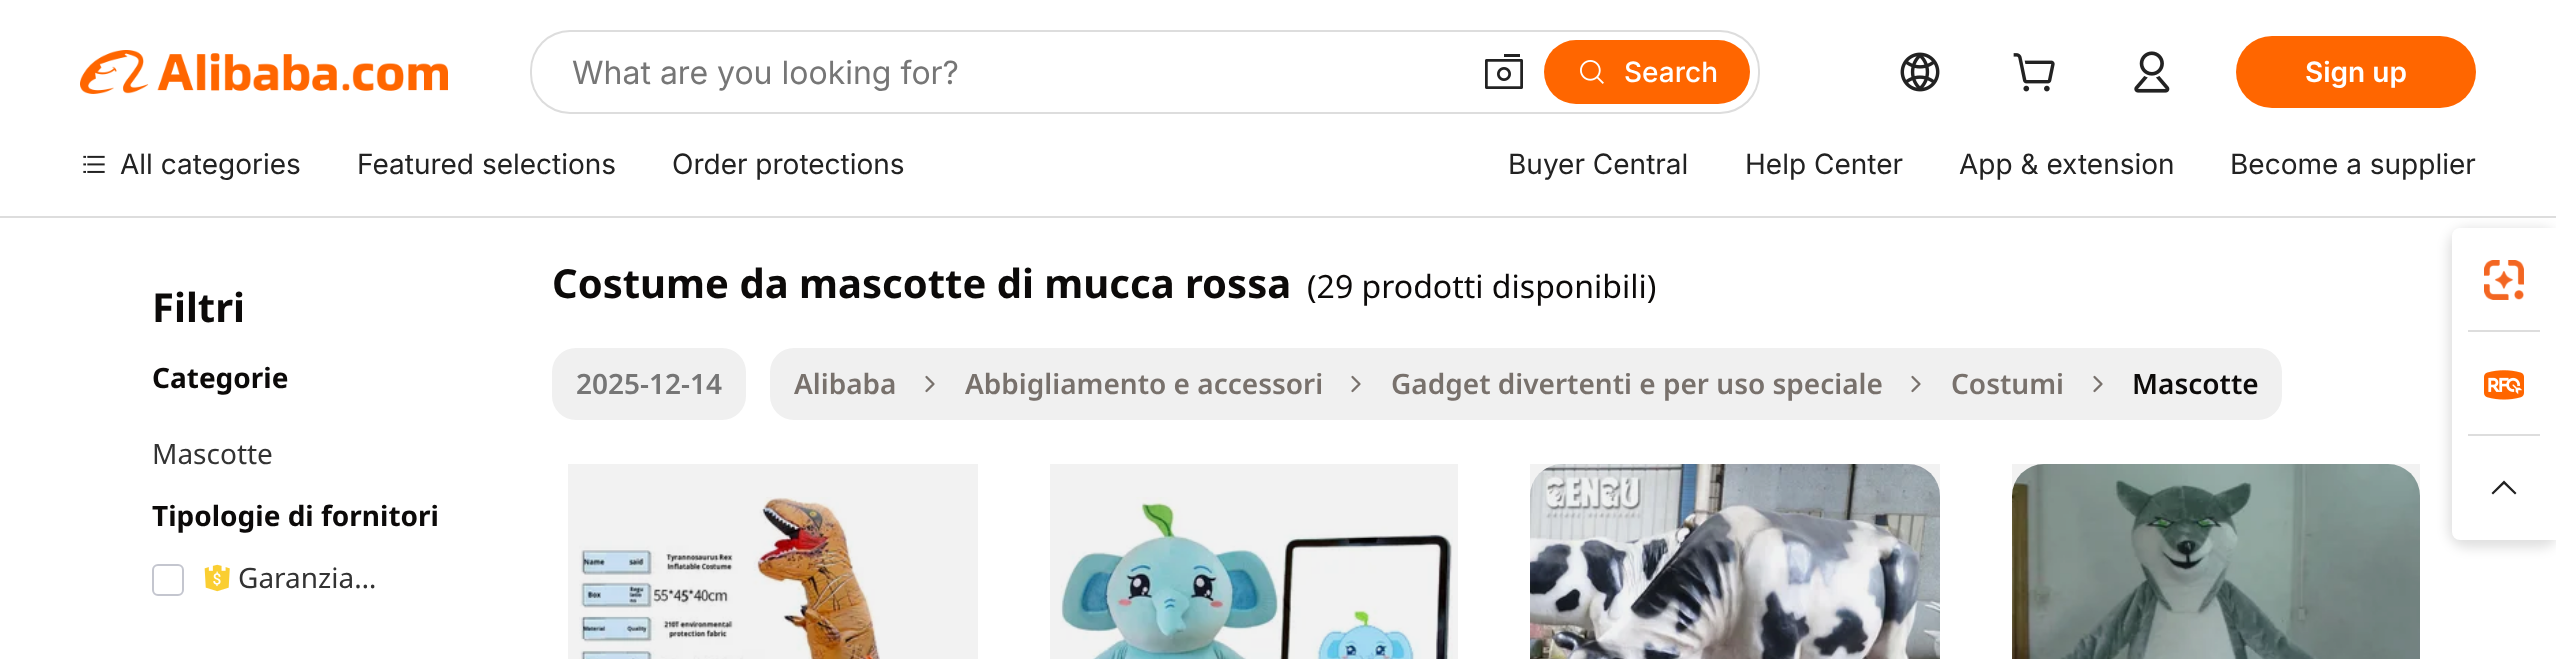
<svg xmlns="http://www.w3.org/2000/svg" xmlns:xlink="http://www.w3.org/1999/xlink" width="2556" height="659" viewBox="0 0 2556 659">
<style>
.cls-1{font:32px Inter;fill:#767676}
.cls-2{font:500 28px Inter;fill:#ffffff}
.cls-3{font:600 28px Inter;fill:#ffffff}
.cls-4{font:28px Inter;fill:#222222}
.cls-5{font:bold 40px Noto Sans;fill:#0c0a09}
.cls-6{font:bold 28px Noto Sans;fill:#0c0a09}
.cls-7{font:28px Noto Sans;fill:#333333}
.cls-8{font:32px Noto Sans;fill:#0c0a09}
.cls-9{font:600 28px Noto Sans;fill:#767676}
.cls-10{font:600 28px Noto Sans;fill:#78716c}
.cls-11{font:600 28px Noto Sans;fill:#0c0a09}
</style>
<rect width="100%" height="100%" fill="#ffffff"/>
<rect fill="#000000" fill-opacity="0.12" filter="blur(6px)" x="2448" y="228" width="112" height="320" rx="20"/>
<rect fill="#dddddd" x="0" y="216" width="2556" height="2"/>
<image xlink:href="image0.png" x="80" y="50" width="368" height="44"/>
<rect fill="#dddddd" x="530" y="30" width="1230" height="84" rx="40"/>
<rect fill="#ffffff" x="532" y="32" width="1226" height="80" rx="38"/>
<image xlink:href="image1.png" x="1485" y="54" width="38" height="35"/>
<rect fill="#ff6600" x="1544" y="40" width="206" height="64" rx="32"/>
<image xlink:href="image2.png" x="1580" y="60" width="24" height="24"/>
<image xlink:href="image3.png" x="1900" y="52" width="40" height="40"/>
<image xlink:href="image4.png" x="2013" y="53" width="42" height="39"/>
<image xlink:href="image5.png" x="2134" y="51" width="36" height="42"/>
<rect fill="#ff6600" x="2236" y="36" width="240" height="72" rx="36"/>
<image xlink:href="image6.png" x="83" y="155" width="22" height="18"/>
<rect fill="none" stroke="#c4c6cf" stroke-width="2" x="153" y="565" width="30" height="30" rx="5"/>
<image xlink:href="image7.png" x="204" y="564" width="26" height="28"/>
<rect fill="#f0f0f0" x="552" y="348" width="194" height="72" rx="24"/>
<rect fill="#f0f0f0" x="770" y="348" width="1512" height="72" rx="24"/>
<path fill="none" stroke="#78716c" stroke-width="2.3" stroke-linecap="round" stroke-linejoin="round" d="M926.5 391L933.5 384L926.5 377"/>
<path fill="none" stroke="#78716c" stroke-width="2.3" stroke-linecap="round" stroke-linejoin="round" d="M1352.5 391L1359.5 384L1352.5 377"/>
<path fill="none" stroke="#78716c" stroke-width="2.3" stroke-linecap="round" stroke-linejoin="round" d="M1912.5 391L1919.5 384L1912.5 377"/>
<path fill="none" stroke="#78716c" stroke-width="2.3" stroke-linecap="round" stroke-linejoin="round" d="M2094.5 391L2101.5 384L2094.5 377"/>
<image xlink:href="image8.png" x="579" y="497" width="301" height="162"/>
<rect fill="#000000" fill-opacity="0.05" x="568" y="464" width="410" height="195"/>
<image xlink:href="image9.png" x="1060" y="497" width="393" height="162"/>
<rect fill="#000000" fill-opacity="0.05" x="1050" y="464" width="408" height="195"/>
<image xlink:href="image10.png" x="1530" y="464" width="410" height="195"/>
<rect fill="#000000" fill-opacity="0.05" x="1530" y="464" width="410" height="195"/>
<image xlink:href="image11.png" x="2012" y="464" width="408" height="195"/>
<rect fill="#000000" fill-opacity="0.05" x="2012" y="464" width="408" height="195"/>
<path fill="#ffffff" d="M2468 228H2556V540H2468C2459 540 2452 533 2452 524V244C2452 235 2459 228 2468 228Z"/>
<rect fill="#ffffff" x="2452" y="228" width="104" height="104" rx="8"/>
<image xlink:href="image12.png" x="2484" y="260" width="40" height="40"/>
<rect fill="#dddddd" x="2468" y="330" width="72" height="2"/>
<image xlink:href="image13.png" x="2484" y="370" width="40" height="30"/>
<rect fill="#dddddd" x="2468" y="434" width="72" height="2"/>
<rect fill="#ffffff" x="2452" y="436" width="104" height="104" rx="8"/>
<path fill="#222222" d="M2504 480.5L2516.5 493L2515 494.5L2504 484L2493 494.5L2491.5 493Z"/>
<text class="cls-1" x="572" y="84">What are you looking for?</text>
<text class="cls-2" x="1624" y="82">Search</text>
<text class="cls-3" x="2305" y="82">Sign up</text>
<text class="cls-4" x="120" y="174">All categories</text>
<text class="cls-4" x="357" y="174">Featured selections</text>
<text class="cls-4" x="672" y="174">Order protections</text>
<text class="cls-4" x="1508" y="174">Buyer Central</text>
<text class="cls-4" x="1745" y="174">Help Center</text>
<text class="cls-4" x="1959" y="174">App &amp; extension</text>
<text class="cls-4" x="2230" y="174">Become a supplier</text>
<text class="cls-5" x="152" y="322">Filtri</text>
<text class="cls-6" x="152" y="388">Categorie</text>
<text class="cls-7" x="152" y="464">Mascotte</text>
<text class="cls-6" x="152" y="526">Tipologie di fornitori</text>
<text class="cls-7" x="238" y="588">Garanzia…</text>
<text class="cls-5" x="552" y="298">Costume da mascotte di mucca rossa</text>
<text class="cls-8" x="1307" y="298">(29 prodotti disponibili)</text>
<text class="cls-9" x="576" y="394">2025-12-14</text>
<text class="cls-10" x="794" y="394">Alibaba</text>
<text class="cls-10" x="965" y="394">Abbigliamento e accessori</text>
<text class="cls-10" x="1391" y="394">Gadget divertenti e per uso speciale</text>
<text class="cls-10" x="1951" y="394">Costumi</text>
<text class="cls-11" x="2132" y="394">Mascotte</text>
</svg>
